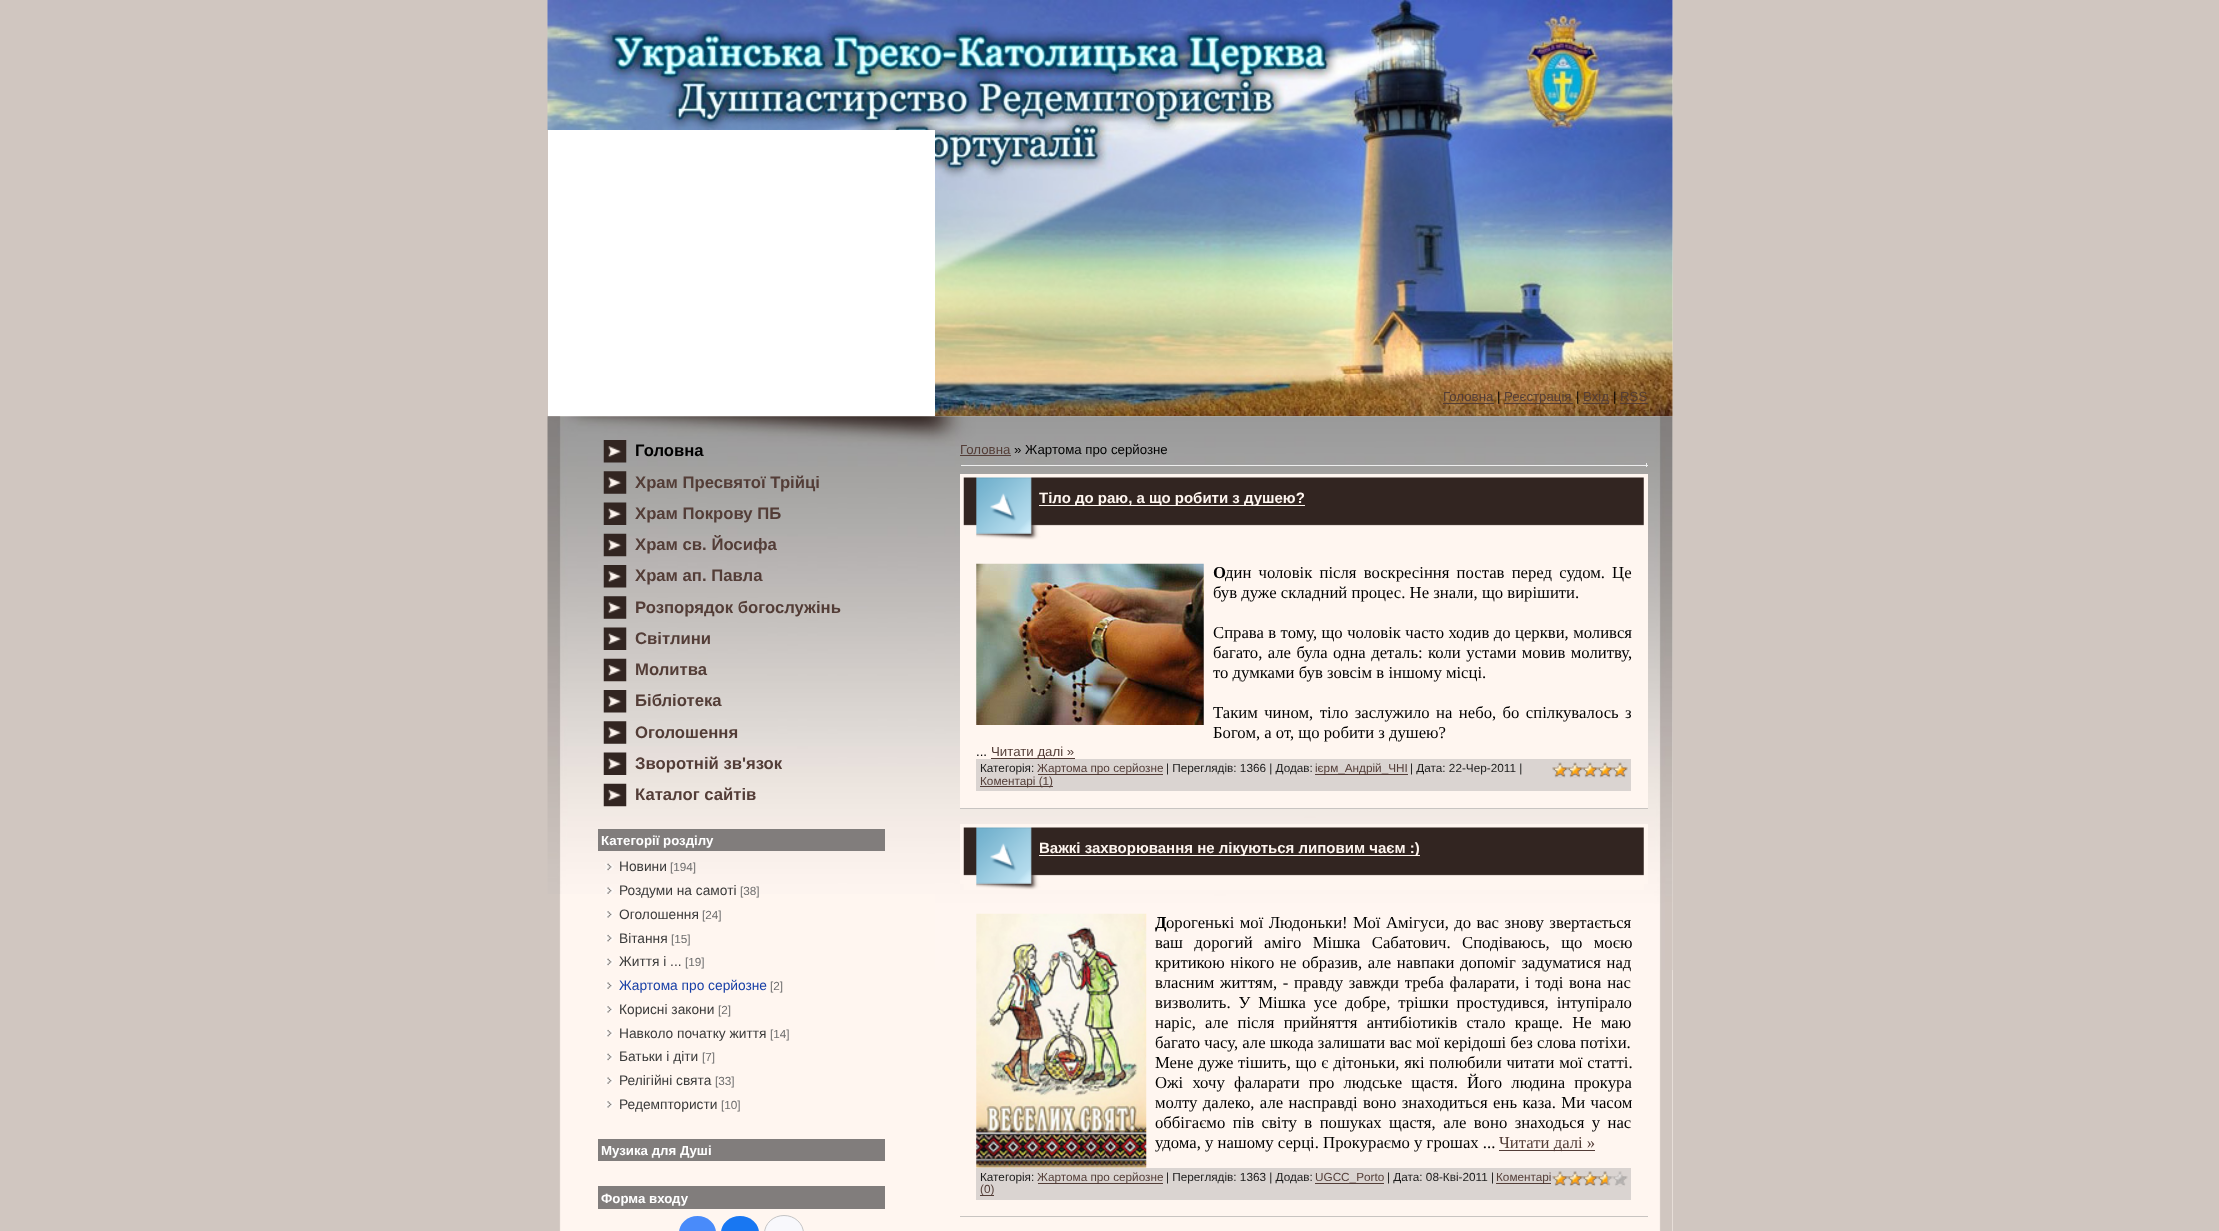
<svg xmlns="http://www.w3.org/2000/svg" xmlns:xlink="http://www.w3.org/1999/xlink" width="2219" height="1231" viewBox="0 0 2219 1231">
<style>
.cls-1{font:13.25px Liberation Sans;fill:#533d37}
.cls-2{font:13.25px Liberation Sans;fill:#000000}
.cls-3{font:bold 16.7px Liberation Sans;fill:#000000}
.cls-4{font:bold 16.7px Liberation Sans;fill:#533d37}
.cls-5{font:bold 13.25px Liberation Sans;fill:#ffffff}
.cls-6{font:13.75px Liberation Sans;fill:#3b3b3b}
.cls-7{font:11.75px Liberation Sans;fill:#6e6e6e}
.cls-8{font:13.75px Liberation Sans;fill:#183fa6}
.cls-9{font:bold 15px Liberation Sans;fill:#fff6f0}
.cls-10{font:bold 16.7px Liberation Serif;fill:#000000}
.cls-11{font:16.7px Liberation Serif;fill:#000000}
.cls-12{font:11.75px Liberation Sans;fill:#1a1a1a}
.cls-13{font:11.75px Liberation Sans;fill:#533d37}
.cls-14{font:16.7px Liberation Serif;fill:#533d37}
</style>
<rect width="100%" height="100%" fill="#d0c6c0"/>
<rect fill="#fff6f0" x="1672" y="0" width="1" height="1231"/>
<image xlink:href="image0.png" x="548" y="0" width="1125" height="1231"/>
<image xlink:href="image1.png" x="547" y="0" width="1126" height="130"/>
<rect fill="#ffffff" x="548" y="130" width="387" height="286"/>
<image xlink:href="image2.png" x="935" y="130" width="738" height="245"/>
<image xlink:href="image3.png" x="935" y="375" width="738" height="42"/>
<rect fill="#533d37" x="1443" y="403" width="51" height="1"/>
<rect fill="#533d37" x="1504" y="403" width="69" height="1"/>
<rect fill="#533d37" x="1583" y="403" width="26" height="1"/>
<rect fill="#533d37" x="1620" y="403" width="28" height="1"/>
<image xlink:href="image4.png" x="547" y="416" width="388" height="478"/>
<image xlink:href="image5.png" x="603" y="440" width="24" height="23"/>
<image xlink:href="image6.png" x="603" y="471" width="24" height="23"/>
<image xlink:href="image7.png" x="603" y="502" width="24" height="23"/>
<image xlink:href="image8.png" x="603" y="533" width="24" height="24"/>
<image xlink:href="image9.png" x="603" y="565" width="24" height="23"/>
<image xlink:href="image10.png" x="603" y="596" width="24" height="23"/>
<image xlink:href="image11.png" x="603" y="627" width="24" height="23"/>
<image xlink:href="image12.png" x="603" y="658" width="24" height="24"/>
<image xlink:href="image13.png" x="603" y="690" width="24" height="23"/>
<image xlink:href="image14.png" x="603" y="721" width="24" height="23"/>
<image xlink:href="image15.png" x="603" y="752" width="24" height="23"/>
<image xlink:href="image16.png" x="603" y="783" width="24" height="24"/>
<rect fill="#817d7c" x="598" y="829" width="287" height="22"/>
<image xlink:href="image17.png" x="605" y="863" width="9" height="8"/>
<image xlink:href="image18.png" x="605" y="887" width="9" height="7"/>
<image xlink:href="image19.png" x="605" y="911" width="9" height="7"/>
<image xlink:href="image20.png" x="605" y="934" width="9" height="8"/>
<image xlink:href="image21.png" x="605" y="958" width="9" height="8"/>
<image xlink:href="image22.png" x="605" y="982" width="9" height="7"/>
<image xlink:href="image19.png" x="605" y="1006" width="9" height="7"/>
<image xlink:href="image20.png" x="605" y="1029" width="9" height="8"/>
<image xlink:href="image21.png" x="605" y="1053" width="9" height="8"/>
<image xlink:href="image22.png" x="605" y="1077" width="9" height="7"/>
<image xlink:href="image19.png" x="605" y="1101" width="9" height="7"/>
<rect fill="#817d7c" x="598" y="1139" width="287" height="22"/>
<rect fill="#817d7c" x="598" y="1186" width="287" height="23"/>
<rect fill="#498bfa" x="679" y="1216" width="37" height="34" rx="18.5"/>
<rect fill="#1877f2" x="721" y="1216" width="38" height="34" rx="19"/>
<rect fill="#f8f8fc" stroke="#c4c4c4" x="764.5" y="1215.5" width="39" height="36" rx="19.5"/>
<image xlink:href="image23.png" x="935" y="416" width="738" height="554"/>
<rect fill="#533d37" x="960" y="455" width="51" height="1"/>
<rect fill="#9f9f9f" x="976" y="463" width="672" height="1"/>
<rect fill="#eeeeee" x="1646" y="463" width="1" height="4"/>
<rect fill="#eeeeee" x="960" y="465" width="688" height="1"/>
<rect fill="#9f9f9f" x="960" y="463" width="1" height="4"/>
<rect fill="#fff6f0" x="960" y="474" width="688" height="334"/>
<rect fill="#c8c4c1" x="960" y="808" width="688" height="1"/>
<image xlink:href="image24.png" x="963" y="477" width="681" height="63"/>
<rect fill="#fff6f0" x="1039" y="505" width="266" height="1"/>
<image xlink:href="image25.png" x="976" y="563" width="228" height="162"/>
<rect fill="#533d37" x="991" y="758" width="84" height="1"/>
<rect fill="#dad4d1" x="976" y="759" width="655" height="32"/>
<rect fill="#533d37" x="1038" y="774" width="125" height="1"/>
<rect fill="#533d37" x="1315" y="774" width="93" height="1"/>
<image xlink:href="image26.png" x="1552" y="762" width="76" height="16"/>
<image xlink:href="image27.png" x="1552" y="762" width="76" height="16"/>
<rect fill="#533d37" x="980" y="786" width="73" height="1"/>
<rect fill="#fff6f0" x="960" y="824" width="688" height="60"/>
<rect fill="#c8c4c1" x="960" y="1216" width="688" height="1"/>
<image xlink:href="image24.png" x="963" y="827" width="681" height="63"/>
<rect fill="#fff6f0" x="1039" y="855" width="381" height="1"/>
<image xlink:href="image28.png" x="976" y="913" width="171" height="255"/>
<rect fill="#533d37" x="1499" y="1150" width="96" height="1"/>
<rect fill="#dad4d1" x="976" y="1168" width="655" height="32"/>
<rect fill="#533d37" x="1038" y="1183" width="125" height="1"/>
<rect fill="#533d37" x="1315" y="1183" width="69" height="1"/>
<rect fill="#533d37" x="1496" y="1183" width="55" height="1"/>
<image xlink:href="image29.png" x="1552" y="1171" width="76" height="16"/>
<image xlink:href="image30.png" x="1552" y="1171" width="56" height="15"/>
<rect fill="#533d37" x="980" y="1195" width="14" height="1"/>
<text class="cls-1" x="1443" y="401">Головна</text>
<text class="cls-2" x="1497" y="401">|</text>
<text class="cls-1" x="1504" y="401">Реєстрація</text>
<text class="cls-2" x="1576" y="401">|</text>
<text class="cls-1" x="1583" y="401">Вхід</text>
<text class="cls-2" x="1613" y="401">|</text>
<text class="cls-1" x="1620" y="401">RSS</text>
<text class="cls-3" x="635" y="456">Головна</text>
<text class="cls-4"><tspan x="635" y="488">Храм Пресвятої Трійці</tspan><tspan x="635" y="519">Храм Покрову ПБ</tspan><tspan x="635" y="550">Храм св. Йосифа</tspan><tspan x="635" y="581">Храм ап. Павла</tspan><tspan x="635" y="613">Розпорядок богослужінь</tspan><tspan x="635" y="644">Світлини</tspan><tspan x="635" y="675">Молитва</tspan><tspan x="635" y="706">Бібліотека</tspan><tspan x="635" y="738">Оголошення</tspan><tspan x="635" y="769">Зворотній зв'язок</tspan><tspan x="635" y="800">Каталог сайтів</tspan></text>
<text class="cls-5" x="601" y="845">Категорії розділу</text>
<text class="cls-6" x="619" y="871">Новини</text>
<text class="cls-7" x="670" y="871">[194]</text>
<text class="cls-6" x="619" y="895">Роздуми на самоті</text>
<text class="cls-7" x="740" y="895">[38]</text>
<text class="cls-6" x="619" y="919">Оголошення</text>
<text class="cls-7" x="702" y="919">[24]</text>
<text class="cls-6" x="619" y="943">Вітання</text>
<text class="cls-7" x="671" y="943">[15]</text>
<text class="cls-6" x="619" y="966">Життя і ...</text>
<text class="cls-7" x="685" y="966">[19]</text>
<text class="cls-8" x="619" y="990">Жартома про серйозне</text>
<text class="cls-7" x="770" y="990">[2]</text>
<text class="cls-6" x="619" y="1014">Корисні закони</text>
<text class="cls-7" x="718" y="1014">[2]</text>
<text class="cls-6" x="619" y="1038">Навколо початку життя</text>
<text class="cls-7" x="770" y="1038">[14]</text>
<text class="cls-6" x="619" y="1061">Батьки і діти</text>
<text class="cls-7" x="702" y="1061">[7]</text>
<text class="cls-6" x="619" y="1085">Релігійні свята</text>
<text class="cls-7" x="715" y="1085">[33]</text>
<text class="cls-6" x="619" y="1109">Редемптористи</text>
<text class="cls-7" x="721" y="1109">[10]</text>
<text class="cls-5" x="601" y="1155">Музика для Душі</text>
<text class="cls-5" x="601" y="1203">Форма входу</text>
<text class="cls-1" x="960" y="454">Головна</text>
<text class="cls-2" x="1014" y="454">» Жартома про серйозне</text>
<text class="cls-9" x="1039" y="503">Тіло до раю, а що робити з душею?</text>
<text class="cls-10" x="1213" y="578">О</text>
<text class="cls-11" x="1225" y="578" word-spacing="3">дин чоловік після воскресіння постав перед судом. Це</text>
<text class="cls-11" x="1213" y="598">був дуже складний процес. Не знали, що вирішити.</text>
<text class="cls-11"><tspan x="1213" y="638" word-spacing="0.25">Справа в тому, що чоловік часто ходив до церкви, молився</tspan><tspan x="1213" y="658" word-spacing="1.25">багато, але була одна деталь: коли устами мовив молитву,</tspan><tspan x="1213" y="678">то думками був зовсім в іншому місці.</tspan></text>
<text class="cls-11"><tspan x="1213" y="718" word-spacing="2.25">Таким чином, тіло заслужило на небо, бо спілкувалось з</tspan><tspan x="1213" y="738">Богом, а от, що робити з душею?</tspan></text>
<text class="cls-2" x="976" y="756">...</text>
<text class="cls-1" x="991" y="756">Читати далі »</text>
<text class="cls-12" x="980" y="772">Категорія:</text>
<text class="cls-13" x="1037" y="772">Жартома про серйозне</text>
<text class="cls-12" x="1166" y="772">| Переглядів: 1366 | Додав:</text>
<text class="cls-13" x="1315" y="772">ієрм_Андрій_ЧНІ</text>
<text class="cls-12" x="1410" y="772">| Дата: 22-Чер-2011 |</text>
<text class="cls-13" x="980" y="785">Коментарі (1)</text>
<text class="cls-9" x="1039" y="853">Важкі захворювання не лікуються липовим чаєм :)</text>
<text class="cls-10" x="1155" y="928">Д</text>
<text class="cls-11" x="1166" y="928" word-spacing="1.25">орогенькі мої Людоньки! Мої Амігуси, до вас знову звертається</text>
<text class="cls-11"><tspan x="1155" y="948" word-spacing="7.25">ваш дорогий аміго Мішка Сабатович. Сподіваюсь, що моєю</tspan><tspan x="1155" y="968" word-spacing="1.5">критикою нікого не образив, але навпаки допоміг задуматися над</tspan><tspan x="1155" y="988" word-spacing="1.5">власним життям, - правду завжди треба фаларати, і тоді вона нас</tspan><tspan x="1155" y="1008" word-spacing="3.75">визволить. У Мішка усе добре, трішки простудився, інтупірало</tspan><tspan x="1155" y="1028" word-spacing="5">наріс, але після прийняття антибіотиків стало краще. Не маю</tspan><tspan x="1155" y="1048">багато часу, але шкода залишати вас мої керідоші без слова потіхи.</tspan><tspan x="1155" y="1068" word-spacing="0.5">Мене дуже тішить, що є дітоньки, які полюбили читати мої статті.</tspan><tspan x="1155" y="1088" word-spacing="5">Ожі хочу фаларати про людське щастя. Його людина прокура</tspan><tspan x="1155" y="1108" word-spacing="1.25">молту далеко, але насправді воно знаходиться ень каза. Ми часом</tspan><tspan x="1155" y="1128" word-spacing="3.25">оббігаємо пів світу в пошуках щастя, але воно знаходься у нас</tspan><tspan x="1155" y="1148">удома, у нашому серці. Прокураємо у грошах ...</tspan></text>
<text class="cls-14" x="1499" y="1148">Читати далі »</text>
<text class="cls-12" x="980" y="1181">Категорія:</text>
<text class="cls-13" x="1037" y="1181">Жартома про серйозне</text>
<text class="cls-12" x="1166" y="1181">| Переглядів: 1363 | Додав:</text>
<text class="cls-13" x="1315" y="1181">UGCC_Porto</text>
<text class="cls-12" x="1387" y="1181">| Дата: 08-Кві-2011 |</text>
<text class="cls-13" x="1496" y="1181">Коментарі</text>
<text class="cls-13" x="980" y="1193">(0)</text>
</svg>
